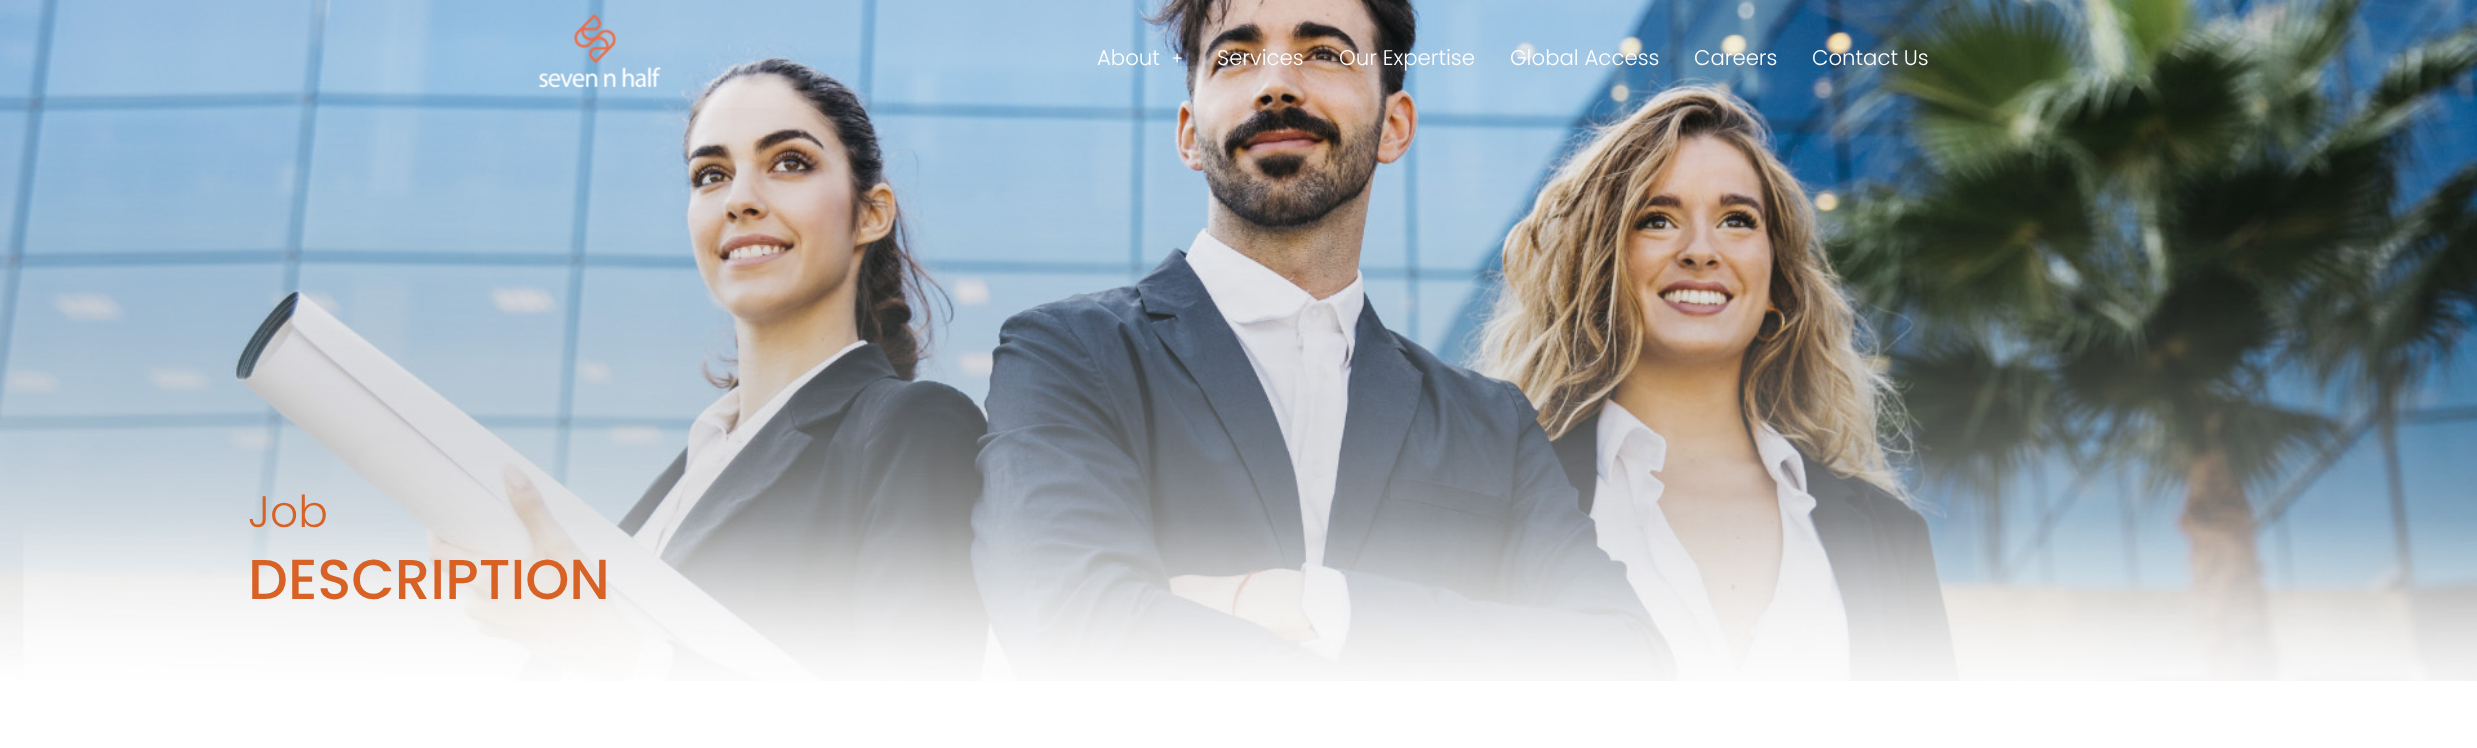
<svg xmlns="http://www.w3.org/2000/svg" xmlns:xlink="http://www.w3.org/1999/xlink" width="2477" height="748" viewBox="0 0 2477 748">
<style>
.cls-1{font:300 21.25px Poppins;fill:#ffffff}
.cls-2{font:bold 18px Liberation Serif;fill:#ffffff}
.cls-3{font:300 44px Poppins;fill:#d86125}
.cls-4{font:500 56.25px Poppins;fill:#d86125}
</style>
<rect width="100%" height="100%" fill="#ffffff"/>
<image xlink:href="image1.png" x="0" y="0" width="2477" height="681"/>
<image xlink:href="image0.png" x="538" y="13" width="123" height="75"/>
<text class="cls-1" x="1097" y="65">About</text>
<text class="cls-2" x="1172" y="64">+</text>
<text class="cls-1" x="1217" y="65">Services</text>
<text class="cls-1" x="1339" y="65">Our Expertise</text>
<text class="cls-1" x="1510" y="65">Global Access</text>
<text class="cls-1" x="1694" y="65">Careers</text>
<text class="cls-1" x="1812" y="65">Contact Us</text>
<text class="cls-3" x="248" y="527">Job</text>
<text class="cls-4" x="248" y="599">DESCRIPTION</text>
</svg>
